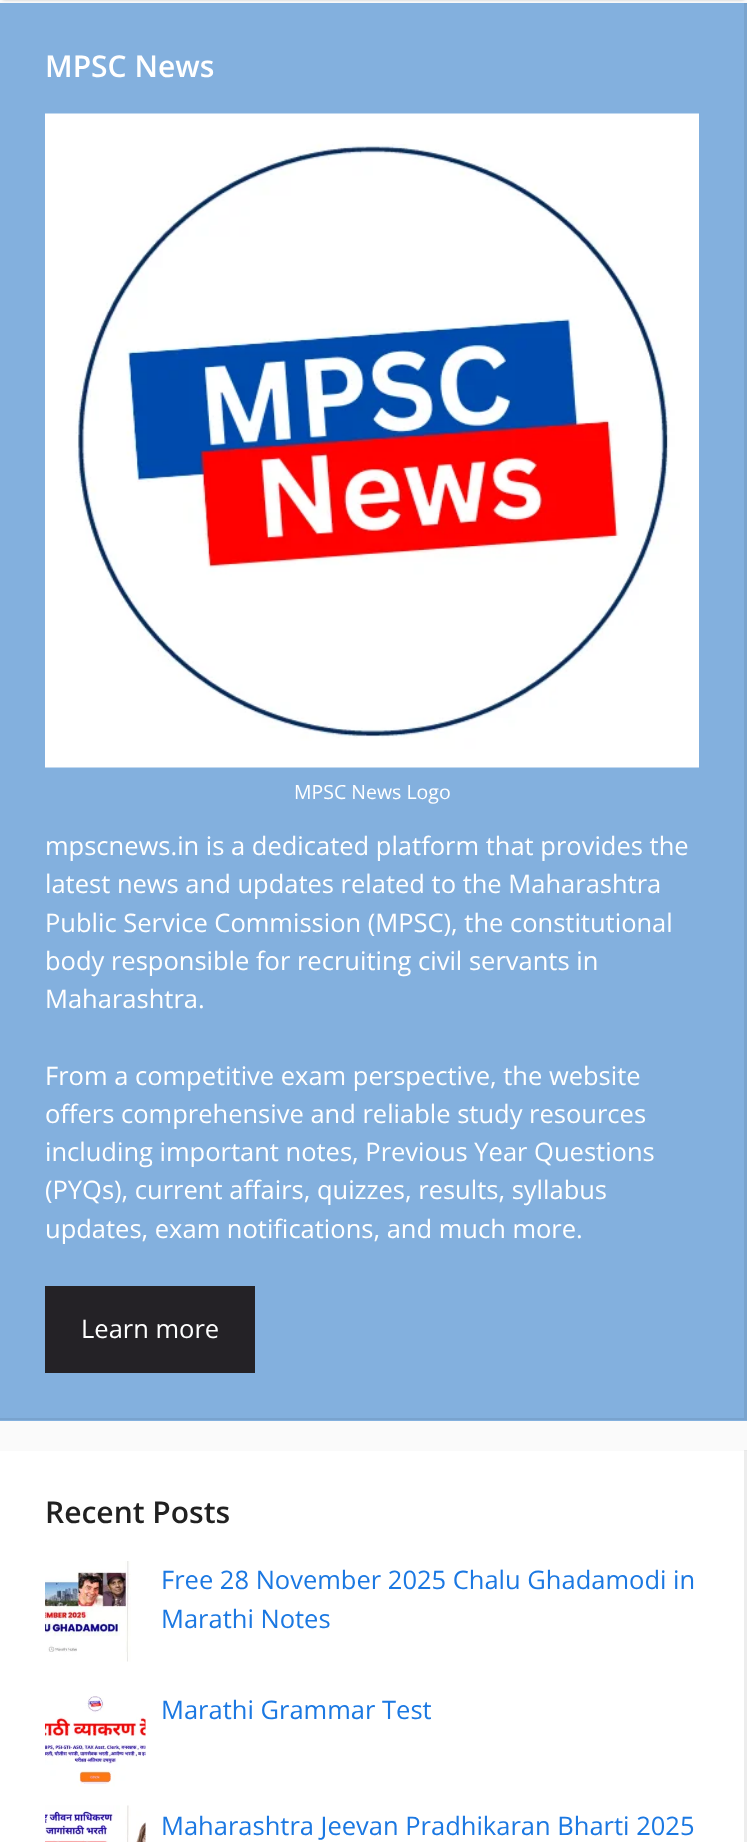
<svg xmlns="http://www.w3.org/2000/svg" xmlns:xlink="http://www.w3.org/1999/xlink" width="747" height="1842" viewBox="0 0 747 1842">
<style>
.cls-1{font:600 30px Open Sans;fill:#ffffff}
.cls-2{font:19.5px Open Sans;fill:#ffffff}
.cls-3{font:25.5px Open Sans;fill:#ffffff}
.cls-4{font:600 30px Open Sans;fill:#212121}
.cls-5{font:25.5px Open Sans;fill:#1b78e2}
</style>
<rect width="100%" height="100%" fill="#fafafa"/>
<rect fill="#83b0de" x="0" y="3" width="747" height="1418"/>
<path fill="#7aa4ce" d="M747 3V1420L744 1418V3Z"/>
<rect fill="#000000" fill-opacity="0.2" filter="blur(1.5px)" x="3" y="-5" width="741" height="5"/>
<path fill="#000000" fill-opacity="0.07" d="M747 1420H0V1418H744Z"/>
<image xlink:href="image0.png" x="45" y="113" width="654" height="655"/>
<rect fill="#242226" x="45" y="1286" width="210" height="87"/>
<rect fill="#ffffff" x="0" y="1451" width="747" height="391"/>
<path fill="#000000" fill-opacity="0.07" d="M747 1450V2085L744 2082V1450Z"/>
<image xlink:href="image1.png" x="45" y="1561" width="86" height="101"/>
<image xlink:href="image2.png" x="45" y="1696" width="101" height="91"/>
<image xlink:href="image3.png" x="45" y="1805" width="101" height="37"/>
<text class="cls-1" x="45" y="77">MPSC News</text>
<text class="cls-2" x="294" y="799">MPSC News Logo</text>
<text class="cls-3"><tspan x="45" y="855">mpscnews.in is a dedicated platform that provides the</tspan><tspan x="45" y="893">latest news and updates related to the Maharashtra</tspan><tspan x="45" y="932">Public Service Commission (MPSC), the constitutional</tspan><tspan x="45" y="970">body responsible for recruiting civil servants in</tspan><tspan x="45" y="1008">Maharashtra.</tspan></text>
<text class="cls-3"><tspan x="45" y="1085">From a competitive exam perspective, the website</tspan><tspan x="45" y="1123">offers comprehensive and reliable study resources</tspan><tspan x="45" y="1161">including important notes, Previous Year Questions</tspan><tspan x="45" y="1199">(PYQs), current affairs, quizzes, results, syllabus</tspan><tspan x="45" y="1238">updates, exam notifications, and much more.</tspan></text>
<text class="cls-3" x="81" y="1338">Learn more</text>
<text class="cls-4" x="45" y="1523">Recent Posts</text>
<text class="cls-5"><tspan x="161" y="1589">Free 28 November 2025 Chalu Ghadamodi in</tspan><tspan x="161" y="1628">Marathi Notes</tspan></text>
<text class="cls-5" x="161" y="1719">Marathi Grammar Test</text>
<text class="cls-5" x="161" y="1835">Maharashtra Jeevan Pradhikaran Bharti 2025</text>
</svg>
